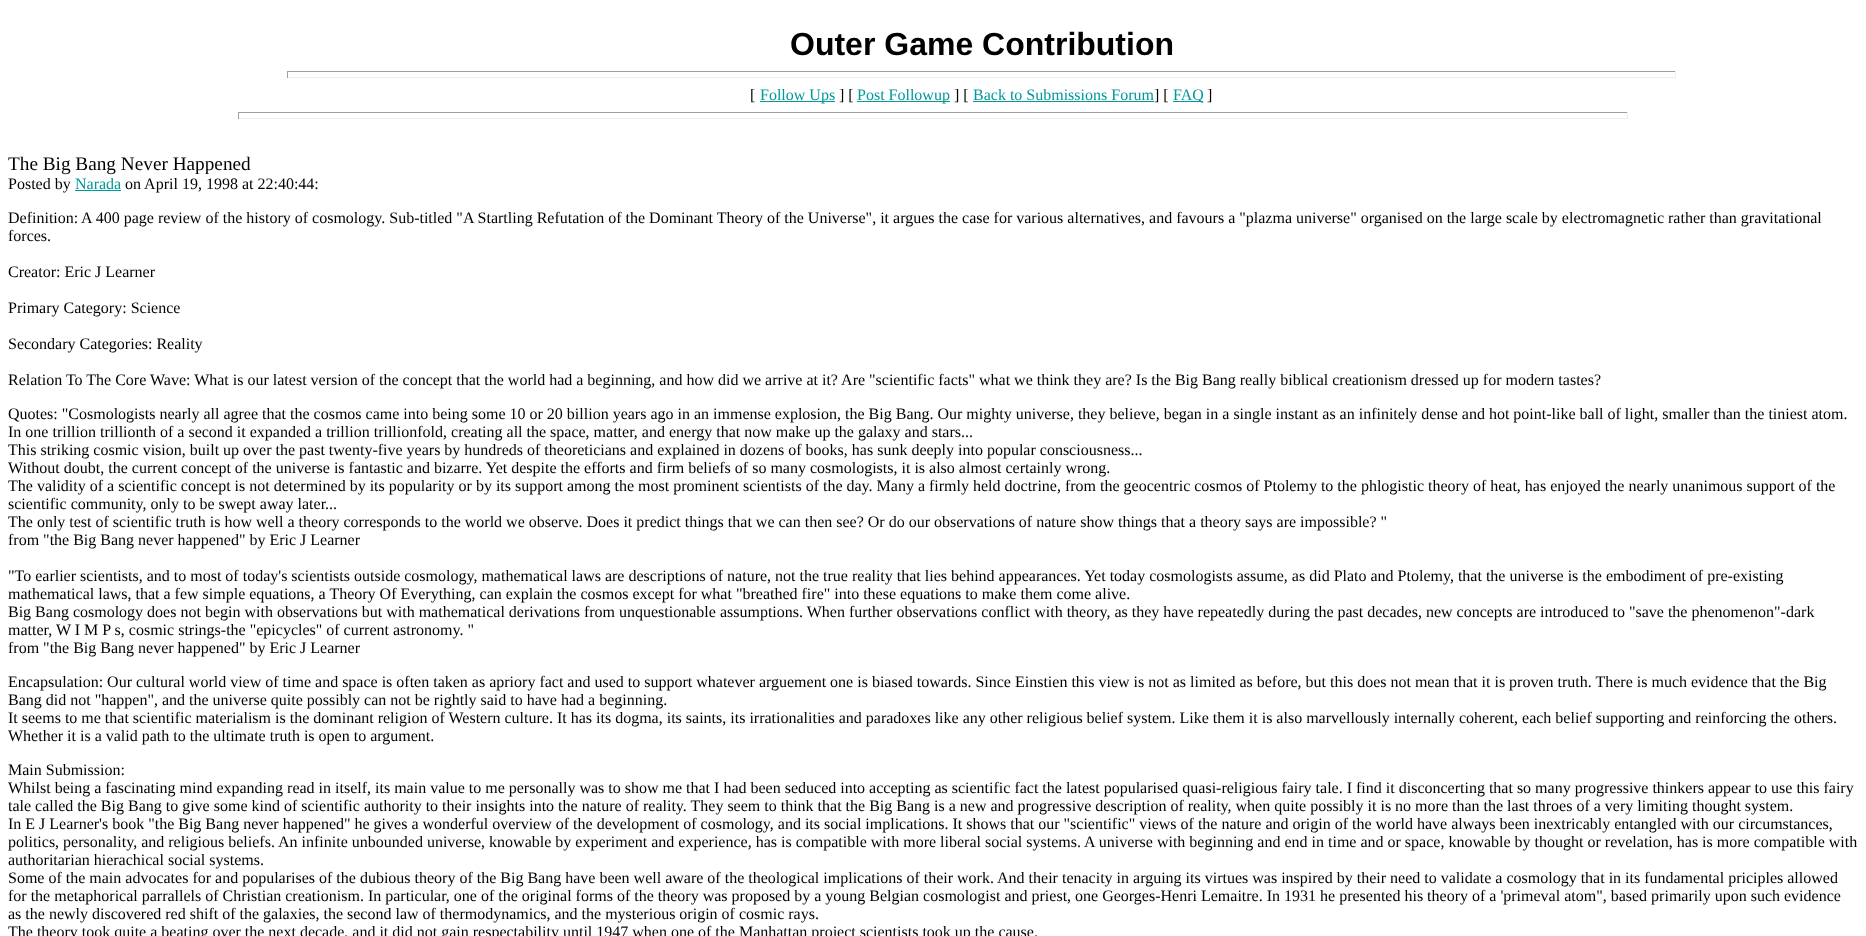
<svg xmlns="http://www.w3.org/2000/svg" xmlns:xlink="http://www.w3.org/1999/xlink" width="1866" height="936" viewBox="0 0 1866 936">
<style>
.cls-1{font:bold 32px Liberation Sans;fill:#000000}
.cls-2{font:16px Liberation Serif;fill:#000000}
.cls-3{font:16px Liberation Serif;fill:#009898}
.cls-4{font:19.25px Liberation Serif;fill:#000000}
</style>
<rect width="100%" height="100%" fill="#ffffff"/>
<rect fill="#9f9f9f" x="287" y="71" width="1389" height="1"/>
<rect fill="#eeeeee" x="1675" y="71" width="1" height="7"/>
<rect fill="#eeeeee" x="287" y="77" width="1389" height="1"/>
<rect fill="#9f9f9f" x="287" y="71" width="1" height="7"/>
<rect fill="#009898" x="760" y="101" width="75" height="1"/>
<rect fill="#009898" x="857" y="101" width="93" height="1"/>
<rect fill="#009898" x="973" y="101" width="181" height="1"/>
<rect fill="#009898" x="1173" y="101" width="30" height="1"/>
<rect fill="#9f9f9f" x="238" y="112" width="1390" height="1"/>
<rect fill="#eeeeee" x="1627" y="112" width="1" height="7"/>
<rect fill="#eeeeee" x="238" y="118" width="1390" height="1"/>
<rect fill="#9f9f9f" x="238" y="112" width="1" height="7"/>
<rect fill="#009898" x="75" y="190" width="46" height="1"/>
<text class="cls-1" x="790" y="55">Outer Game Contribution</text>
<text class="cls-2" x="750" y="100">[</text>
<text class="cls-3" x="760" y="100">Follow Ups</text>
<text class="cls-2" x="839" y="100">] [</text>
<text class="cls-3" x="857" y="100">Post Followup</text>
<text class="cls-2" x="954" y="100">] [</text>
<text class="cls-3" x="973" y="100">Back to Submissions Forum</text>
<text class="cls-2" x="1154" y="100">] [</text>
<text class="cls-3" x="1173" y="100">FAQ</text>
<text class="cls-2" x="1207" y="100">]</text>
<text class="cls-4" x="8" y="170">The Big Bang Never Happened</text>
<text class="cls-2" x="8" y="189">Posted by</text>
<text class="cls-3" x="75" y="189">Narada</text>
<text class="cls-2" x="125" y="189">on April 19, 1998 at 22:40:44:</text>
<text class="cls-2" x="8" y="223">Definition:</text>
<text class="cls-2" x="81" y="223">A 400 page review of the history of cosmology. Sub-titled "A Startling Refutation of the Dominant Theory of the Universe", it argues the case for various alternatives, and favours a "plazma universe" organised on the large scale by electromagnetic rather than gravitational</text>
<text class="cls-2" x="8" y="241">forces.</text>
<text class="cls-2" x="8" y="277">Creator: Eric J Learner</text>
<text class="cls-2" x="8" y="313">Primary Category: Science</text>
<text class="cls-2" x="8" y="349">Secondary Categories: Reality</text>
<text class="cls-2" x="8" y="385">Relation To The Core Wave: What is our latest version of the concept that the world had a beginning, and how did we arrive at it? Are "scientific facts" what we think they are? Is the Big Bang really biblical creationism dressed up for modern tastes?</text>
<text class="cls-2"><tspan x="8" y="419">Quotes: "Cosmologists nearly all agree that the cosmos came into being some 10 or 20 billion years ago in an immense explosion, the Big Bang. Our mighty universe, they believe, began in a single instant as an infinitely dense and hot point-like ball of light, smaller than the tiniest atom.</tspan><tspan x="8" y="437">In one trillion trillionth of a second it expanded a trillion trillionfold, creating all the space, matter, and energy that now make up the galaxy and stars...</tspan><tspan x="8" y="455">This striking cosmic vision, built up over the past twenty-five years by hundreds of theoreticians and explained in dozens of books, has sunk deeply into popular consciousness...</tspan><tspan x="8" y="473">Without doubt, the current concept of the universe is fantastic and bizarre. Yet despite the efforts and firm beliefs of so many cosmologists, it is also almost certainly wrong.</tspan><tspan x="8" y="491">The validity of a scientific concept is not determined by its popularity or by its support among the most prominent scientists of the day. Many a firmly held doctrine, from the geocentric cosmos of Ptolemy to the phlogistic theory of heat, has enjoyed the nearly unanimous support of the</tspan><tspan x="8" y="509">scientific community, only to be swept away later...</tspan><tspan x="8" y="527">The only test of scientific truth is how well a theory corresponds to the world we observe. Does it predict things that we can then see? Or do our observations of nature show things that a theory says are impossible? "</tspan><tspan x="8" y="545">from "the Big Bang never happened" by Eric J Learner</tspan></text>
<text class="cls-2"><tspan x="8" y="581">"To earlier scientists, and to most of today's scientists outside cosmology, mathematical laws are descriptions of nature, not the true reality that lies behind appearances. Yet today cosmologists assume, as did Plato and Ptolemy, that the universe is the embodiment of pre-existing</tspan><tspan x="8" y="599">mathematical laws, that a few simple equations, a Theory Of Everything, can explain the cosmos except for what "breathed fire" into these equations to make them come alive.</tspan><tspan x="8" y="617">Big Bang cosmology does not begin with observations but with mathematical derivations from unquestionable assumptions. When further observations conflict with theory, as they have repeatedly during the past decades, new concepts are introduced to "save the phenomenon"-dark</tspan><tspan x="8" y="635">matter, W I M P s, cosmic strings-the "epicycles" of current astronomy. "</tspan><tspan x="8" y="653">from "the Big Bang never happened" by Eric J Learner</tspan></text>
<text class="cls-2"><tspan x="8" y="687">Encapsulation: Our cultural world view of time and space is often taken as apriory fact and used to support whatever arguement one is biased towards. Since Einstien this view is not as limited as before, but this does not mean that it is proven truth. There is much evidence that the Big</tspan><tspan x="8" y="705">Bang did not "happen", and the universe quite possibly can not be rightly said to have had a beginning.</tspan><tspan x="8" y="723">It seems to me that scientific materialism is the dominant religion of Western culture. It has its dogma, its saints, its irrationalities and paradoxes like any other religious belief system. Like them it is also marvellously internally coherent, each belief supporting and reinforcing the others.</tspan><tspan x="8" y="741">Whether it is a valid path to the ultimate truth is open to argument.</tspan></text>
<text class="cls-2"><tspan x="8" y="775">Main Submission:</tspan><tspan x="8" y="793">Whilst being a fascinating mind expanding read in itself, its main value to me personally was to show me that I had been seduced into accepting as scientific fact the latest popularised quasi-religious fairy tale. I find it disconcerting that so many progressive thinkers appear to use this fairy</tspan><tspan x="8" y="811">tale called the Big Bang to give some kind of scientific authority to their insights into the nature of reality. They seem to think that the Big Bang is a new and progressive description of reality, when quite possibly it is no more than the last throes of a very limiting thought system.</tspan><tspan x="8" y="829">In E J Learner's book "the Big Bang never happened" he gives a wonderful overview of the development of cosmology, and its social implications. It shows that our "scientific" views of the nature and origin of the world have always been inextricably entangled with our circumstances,</tspan><tspan x="8" y="847">politics, personality, and religious beliefs. An infinite unbounded universe, knowable by experiment and experience, has is compatible with more liberal social systems. A universe with beginning and end in time and or space, knowable by thought or revelation, has is more compatible with</tspan><tspan x="8" y="865">authoritarian hierachical social systems.</tspan><tspan x="8" y="883">Some of the main advocates for and popularises of the dubious theory of the Big Bang have been well aware of the theological implications of their work. And their tenacity in arguing its virtues was inspired by their need to validate a cosmology that in its fundamental priciples allowed</tspan><tspan x="8" y="901">for the metaphorical parrallels of Christian creationism. In particular, one of the original forms of the theory was proposed by a young Belgian cosmologist and priest, one Georges-Henri Lemaitre. In 1931 he presented his theory of a 'primeval atom", based primarily upon such evidence</tspan><tspan x="8" y="919">as the newly discovered red shift of the galaxies, the second law of thermodynamics, and the mysterious origin of cosmic rays.</tspan><tspan x="8" y="937">The theory took quite a beating over the next decade, and it did not gain respectability until 1947 when one of the Manhattan project scientists took up the cause.</tspan></text>
</svg>
